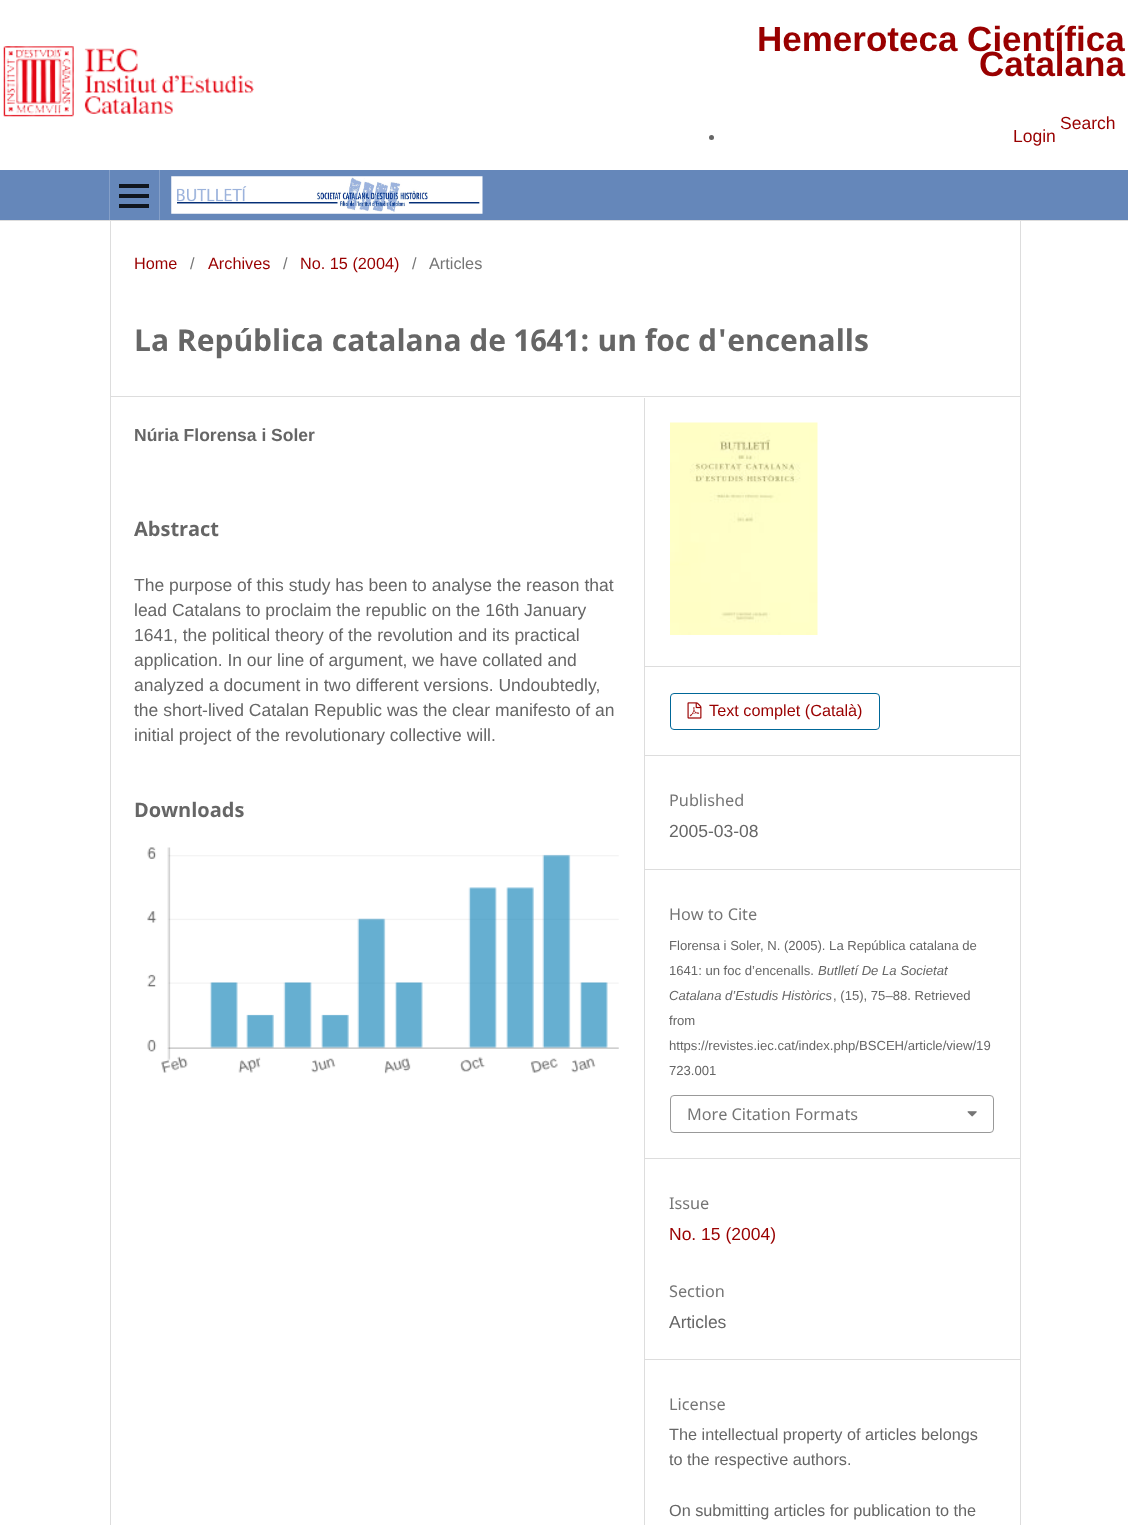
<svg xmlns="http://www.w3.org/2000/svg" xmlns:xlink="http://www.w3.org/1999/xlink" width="1128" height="1525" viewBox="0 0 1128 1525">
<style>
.cls-1{font:bold 35px Liberation Sans;fill:#990000}
.cls-2{font:17.5px Liberation Sans;fill:#990000}
.cls-3{font:16.25px Liberation Sans;fill:#990000}
.cls-4{font:16.25px Liberation Sans;fill:#757575}
.cls-5{font:bold 30px Noto Sans;fill:#666666}
.cls-6{font:bold 17.5px Liberation Sans;fill:#666666}
.cls-7{font:bold 20px Noto Sans;fill:#666666}
.cls-8{font:17.5px Liberation Sans;fill:#666666}
.cls-9{font:16.25px Noto Sans;fill:#757575}
.cls-10{font:13.1px Liberation Sans;fill:#666666}
.cls-11{font:italic 13.1px Liberation Sans;fill:#666666}
.cls-12{font:16.25px Liberation Sans;fill:#666666}
</style>
<rect width="100%" height="100%" fill="#ffffff"/>
<image xlink:href="image0.png" x="3" y="46" width="251" height="71"/>
<circle fill="#666666" cx="711.5" cy="137.5" r="2.5"/>
<rect fill="#6587ba" x="0" y="170" width="1128" height="50"/>
<rect fill="#dddddd" x="0" y="220" width="1128" height="1"/>
<rect fill="#849fc8" x="109" y="170" width="1" height="50"/>
<rect fill="#849fc8" x="159" y="170" width="1" height="50"/>
<rect fill="#10161e" x="119" y="204" width="30" height="4"/>
<rect fill="#10161e" x="119" y="184" width="30" height="4"/>
<rect fill="#10161e" x="119" y="194" width="30" height="4"/>
<image xlink:href="image1.png" x="171" y="176" width="312" height="38"/>
<rect fill="#dddddd" x="110" y="396" width="910" height="1"/>
<rect fill="#dddddd" x="110" y="221" width="1" height="1304"/>
<image xlink:href="image2.png" x="147" y="847" width="472" height="227"/>
<rect fill="#dddddd" x="644" y="398" width="1" height="1127"/>
<rect fill="#dddddd" x="645" y="666" width="375" height="1"/>
<image xlink:href="image3.png" x="670" y="422" width="148" height="213"/>
<rect fill="#dddddd" x="645" y="755" width="375" height="1"/>
<rect fill="none" stroke="#006798" x="670.5" y="693.5" width="209" height="36" rx="3.5"/>
<image xlink:href="image4.png" x="687" y="702" width="15" height="17"/>
<rect fill="#dddddd" x="645" y="869" width="375" height="1"/>
<rect fill="#dddddd" x="645" y="1158" width="375" height="1"/>
<rect fill="none" stroke="#999999" x="670.5" y="1095.5" width="323" height="37" rx="3.5"/>
<image xlink:href="image5.png" x="967" y="1111" width="10" height="6"/>
<rect fill="#dddddd" x="645" y="1359" width="375" height="1"/>
<rect fill="#dddddd" x="1020" y="221" width="1" height="1304"/>
<text class="cls-1" x="757" y="51">Hemeroteca Científica</text>
<text class="cls-1" x="979" y="76">Catalana</text>
<text class="cls-2" x="1060" y="129">Search</text>
<text class="cls-2" x="1013" y="142">Login</text>
<text class="cls-3" x="134" y="269">Home</text>
<text class="cls-4" x="190" y="269">/</text>
<text class="cls-3" x="208" y="269">Archives</text>
<text class="cls-4" x="283" y="269">/</text>
<text class="cls-3" x="300" y="269">No. 15 (2004)</text>
<text class="cls-4" x="412" y="269">/</text>
<text class="cls-4" x="429" y="269">Articles</text>
<text class="cls-5" x="134" y="351">La República catalana de 1641: un foc d'encenalls</text>
<text class="cls-6" x="134" y="441">Núria Florensa i Soler</text>
<text class="cls-7" x="134" y="536">Abstract</text>
<text class="cls-8"><tspan x="134" y="591">The purpose of this study has been to analyse the reason that</tspan><tspan x="134" y="616">lead Catalans to proclaim the republic on the 16th January</tspan><tspan x="134" y="641">1641, the political theory of the revolution and its practical</tspan><tspan x="134" y="666">application. In our line of argument, we have collated and</tspan><tspan x="134" y="691">analyzed a document in two different versions. Undoubtedly,</tspan><tspan x="134" y="716">the short-lived Catalan Republic was the clear manifesto of an</tspan><tspan x="134" y="741">initial project of the revolutionary collective will.</tspan></text>
<text class="cls-7" x="134" y="817">Downloads</text>
<text class="cls-3" x="709" y="716">Text complet (Català)</text>
<text class="cls-9" x="669" y="806">Published</text>
<text class="cls-8" x="669" y="837">2005-03-08</text>
<text class="cls-9" x="669" y="920">How to Cite</text>
<text class="cls-10"><tspan x="669" y="950">Florensa i Soler, N. (2005). La República catalana de</tspan><tspan x="669" y="975">1641: un foc d’encenalls.</tspan></text>
<text class="cls-11" x="818" y="975">Butlletí De La Societat</text>
<text class="cls-11" x="669" y="1000">Catalana d’Estudis Històrics</text>
<text class="cls-10" x="833" y="1000">, (15), 75–88. Retrieved</text>
<text class="cls-10"><tspan x="669" y="1025">from</tspan><tspan x="669" y="1050">https://revistes.iec.cat/index.php/BSCEH/article/view/19</tspan><tspan x="669" y="1075">723.001</tspan></text>
<text class="cls-9" x="687" y="1120">More Citation Formats</text>
<text class="cls-9" x="669" y="1209">Issue</text>
<text class="cls-2" x="669" y="1240">No. 15 (2004)</text>
<text class="cls-9" x="669" y="1297">Section</text>
<text class="cls-8" x="669" y="1328">Articles</text>
<text class="cls-9" x="669" y="1410">License</text>
<text class="cls-12"><tspan x="669" y="1440">The intellectual property of articles belongs</tspan><tspan x="669" y="1465">to the respective authors.</tspan></text>
<text class="cls-12" x="669" y="1516">On submitting articles for publication to the</text>
</svg>
